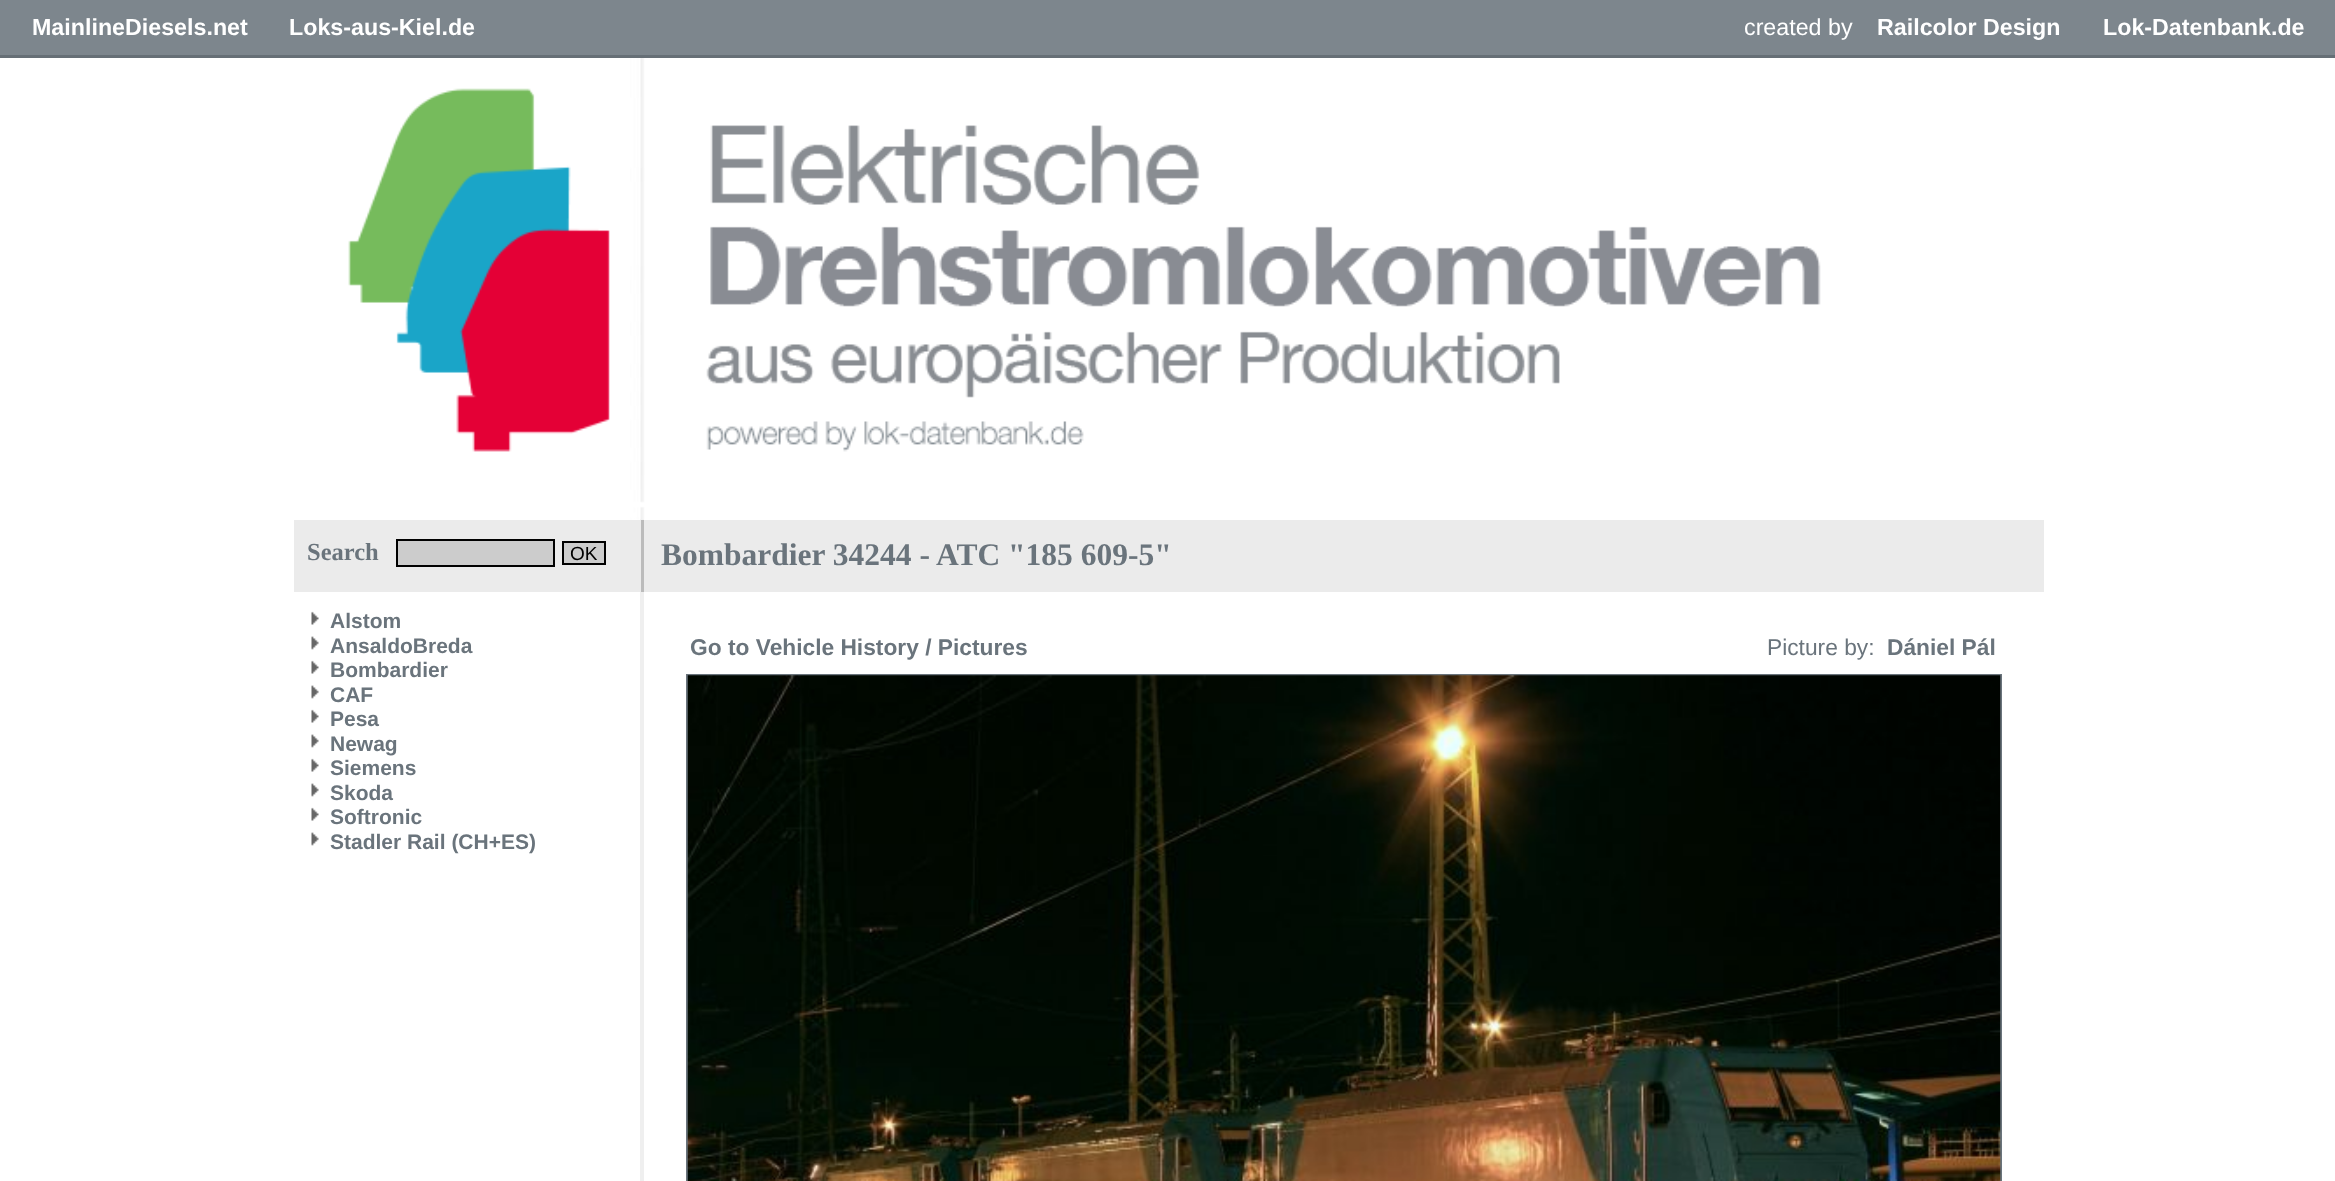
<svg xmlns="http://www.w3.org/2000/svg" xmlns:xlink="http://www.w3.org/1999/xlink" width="2335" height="1181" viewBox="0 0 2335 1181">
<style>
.cls-1{font:bold 23.25px Liberation Sans;fill:#ffffff}
.cls-2{font:23.25px Liberation Sans;fill:#ffffff}
.cls-3{font:bold 24.5px Liberation Serif;fill:#6a747c}
.cls-4{font:19px Liberation Sans;fill:#000000}
.cls-5{font:bold 21px Liberation Sans;fill:#6a747c}
.cls-6{font:bold 31.5px Liberation Serif;fill:#6a747c}
.cls-7{font:bold 22.75px Liberation Sans;fill:#6a747c}
.cls-8{font:22.75px Liberation Sans;fill:#6a747c}
</style>
<rect width="100%" height="100%" fill="#ffffff"/>
<rect fill="#7d868d" x="0" y="0" width="2335" height="55"/>
<rect fill="#666f76" x="0" y="55" width="2335" height="3"/>
<rect fill="#efefef" x="640" y="519" width="4" height="662"/>
<image xlink:href="image0.png" x="348" y="58" width="1473" height="462"/>
<rect fill="#ebebeb" x="294" y="520" width="347" height="72"/>
<rect fill="#bbbbbb" x="641" y="520" width="3" height="72"/>
<rect fill="#cccccc" stroke="#000000" stroke-width="2" x="397" y="540" width="157" height="26"/>
<rect fill="#cccccc" stroke="#000000" stroke-width="2" x="563" y="542" width="42" height="22"/>
<image xlink:href="image1.png" x="311" y="611" width="8" height="14"/>
<image xlink:href="image2.png" x="311" y="636" width="8" height="14"/>
<image xlink:href="image1.png" x="311" y="660" width="8" height="14"/>
<image xlink:href="image2.png" x="311" y="685" width="8" height="14"/>
<image xlink:href="image1.png" x="311" y="709" width="8" height="14"/>
<image xlink:href="image2.png" x="311" y="734" width="8" height="14"/>
<image xlink:href="image1.png" x="311" y="758" width="8" height="14"/>
<image xlink:href="image2.png" x="311" y="783" width="8" height="14"/>
<image xlink:href="image1.png" x="311" y="807" width="8" height="14"/>
<image xlink:href="image2.png" x="311" y="832" width="8" height="14"/>
<rect fill="#ebebeb" x="644" y="520" width="1400" height="72"/>
<rect fill="none" stroke="#6a747c" stroke-width="2" x="687" y="675" width="1314" height="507"/>
<image xlink:href="image3.png" x="687" y="675" width="1314" height="506"/>
<text class="cls-1" x="32" y="35">MainlineDiesels.net</text>
<text class="cls-1" x="289" y="35">Loks-aus-Kiel.de</text>
<text class="cls-2" x="1744" y="35">created by</text>
<text class="cls-1" x="1877" y="35">Railcolor Design</text>
<text class="cls-1" x="2103" y="35">Lok-Datenbank.de</text>
<text class="cls-3" x="307" y="560">Search</text>
<text class="cls-4" x="570" y="560">OK</text>
<text class="cls-5"><tspan x="330" y="628">Alstom</tspan><tspan x="330" y="653">AnsaldoBreda</tspan><tspan x="330" y="677">Bombardier</tspan><tspan x="330" y="702">CAF</tspan><tspan x="330" y="726">Pesa</tspan><tspan x="330" y="751">Newag</tspan><tspan x="330" y="775">Siemens</tspan><tspan x="330" y="800">Skoda</tspan><tspan x="330" y="824">Softronic</tspan><tspan x="330" y="849">Stadler Rail (CH+ES)</tspan></text>
<text class="cls-6" x="661" y="565">Bombardier 34244 - ATC "185 609-5"</text>
<text class="cls-7" x="690" y="655">Go to Vehicle History / Pictures</text>
<text class="cls-8" x="1767" y="655">Picture by:</text>
<text class="cls-7" x="1887" y="655">Dániel Pál</text>
</svg>
